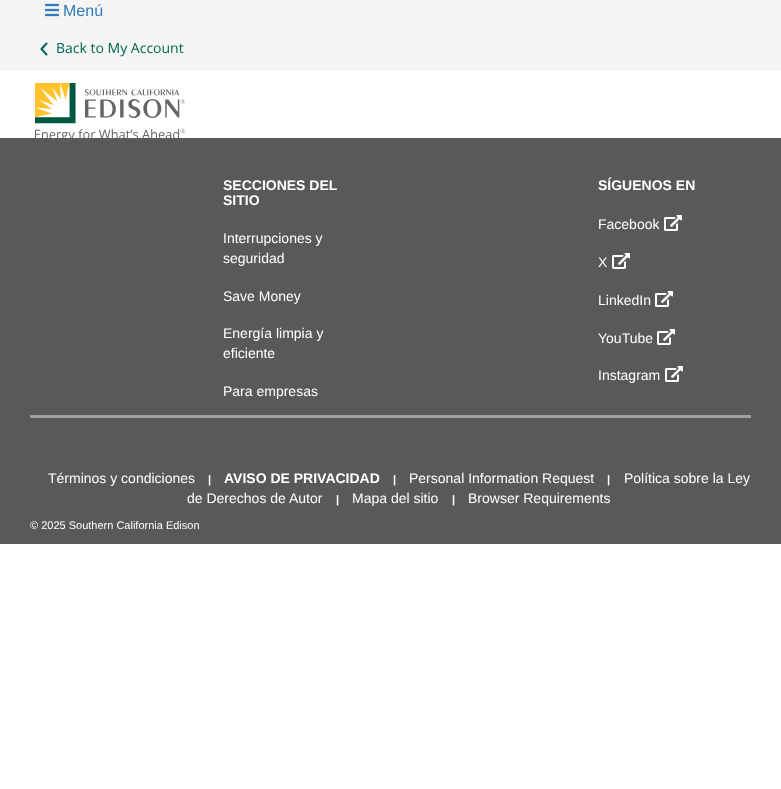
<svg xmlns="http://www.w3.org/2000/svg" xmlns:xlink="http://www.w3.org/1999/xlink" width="781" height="789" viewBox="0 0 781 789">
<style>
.cls-1{font:16px Liberation Sans;fill:#337ab7}
.cls-2{font:14px Open Sans;fill:#00664f}
.cls-3{font:bold 14px Liberation Sans;fill:#ffffff}
.cls-4{font:14px Liberation Sans;fill:#ffffff}
.cls-5{font:bold 11px Liberation Sans;fill:#ffffff}
.cls-6{font:11px Liberation Sans;fill:#ffffff}
</style>
<rect width="100%" height="100%" fill="#ffffff"/>
<rect fill="#f5f5f5" x="0" y="0" width="781" height="71"/>
<image xlink:href="image0.png" x="45" y="3" width="14" height="14"/>
<path fill="none" stroke="#00664f" stroke-width="2" stroke-linecap="round" stroke-linejoin="round" d="M46.5 43.5L41.5 49L46.5 54.5"/>
<rect fill="#595959" x="0" y="138" width="781" height="406"/>
<image xlink:href="image1.png" x="35" y="83" width="150" height="59"/>
<image xlink:href="image2.png" x="664" y="215" width="18" height="16"/>
<image xlink:href="image2.png" x="612" y="253" width="18" height="16"/>
<image xlink:href="image2.png" x="655" y="291" width="18" height="16"/>
<image xlink:href="image2.png" x="657" y="329" width="18" height="16"/>
<image xlink:href="image2.png" x="665" y="366" width="18" height="16"/>
<rect fill="#9f9f9f" x="30" y="415" width="721" height="3"/>
<text class="cls-1" x="63" y="16">Menú</text>
<text class="cls-2" x="56" y="53">Back to My Account</text>
<text class="cls-3"><tspan x="223" y="190">SECCIONES DEL</tspan><tspan x="223" y="205">SITIO</tspan></text>
<text class="cls-4"><tspan x="223" y="243">Interrupciones y</tspan><tspan x="223" y="263">seguridad</tspan></text>
<text class="cls-4" x="223" y="301">Save Money</text>
<text class="cls-4"><tspan x="223" y="338">Energía limpia y</tspan><tspan x="223" y="358">eficiente</tspan></text>
<text class="cls-4" x="223" y="396">Para empresas</text>
<text class="cls-3" x="598" y="190">SÍGUENOS EN</text>
<text class="cls-4" x="598" y="229">Facebook</text>
<text class="cls-4" x="598" y="267">X</text>
<text class="cls-4" x="598" y="305">LinkedIn</text>
<text class="cls-4" x="598" y="343">YouTube</text>
<text class="cls-4" x="598" y="380">Instagram</text>
<text class="cls-4" x="48" y="483">Términos y condiciones</text>
<text class="cls-5" x="208" y="483">|</text>
<text class="cls-3" x="224" y="483">AVISO DE PRIVACIDAD</text>
<text class="cls-5" x="393" y="483">|</text>
<text class="cls-4" x="409" y="483">Personal Information Request</text>
<text class="cls-5" x="607" y="483">|</text>
<text class="cls-4" x="624" y="483">Política sobre la Ley</text>
<text class="cls-4" x="187" y="503">de Derechos de Autor</text>
<text class="cls-5" x="336" y="503">|</text>
<text class="cls-4" x="352" y="503">Mapa del sitio</text>
<text class="cls-5" x="452" y="503">|</text>
<text class="cls-4" x="468" y="503">Browser Requirements</text>
<text class="cls-6" x="30" y="529">© 2025 Southern California Edison</text>
</svg>
